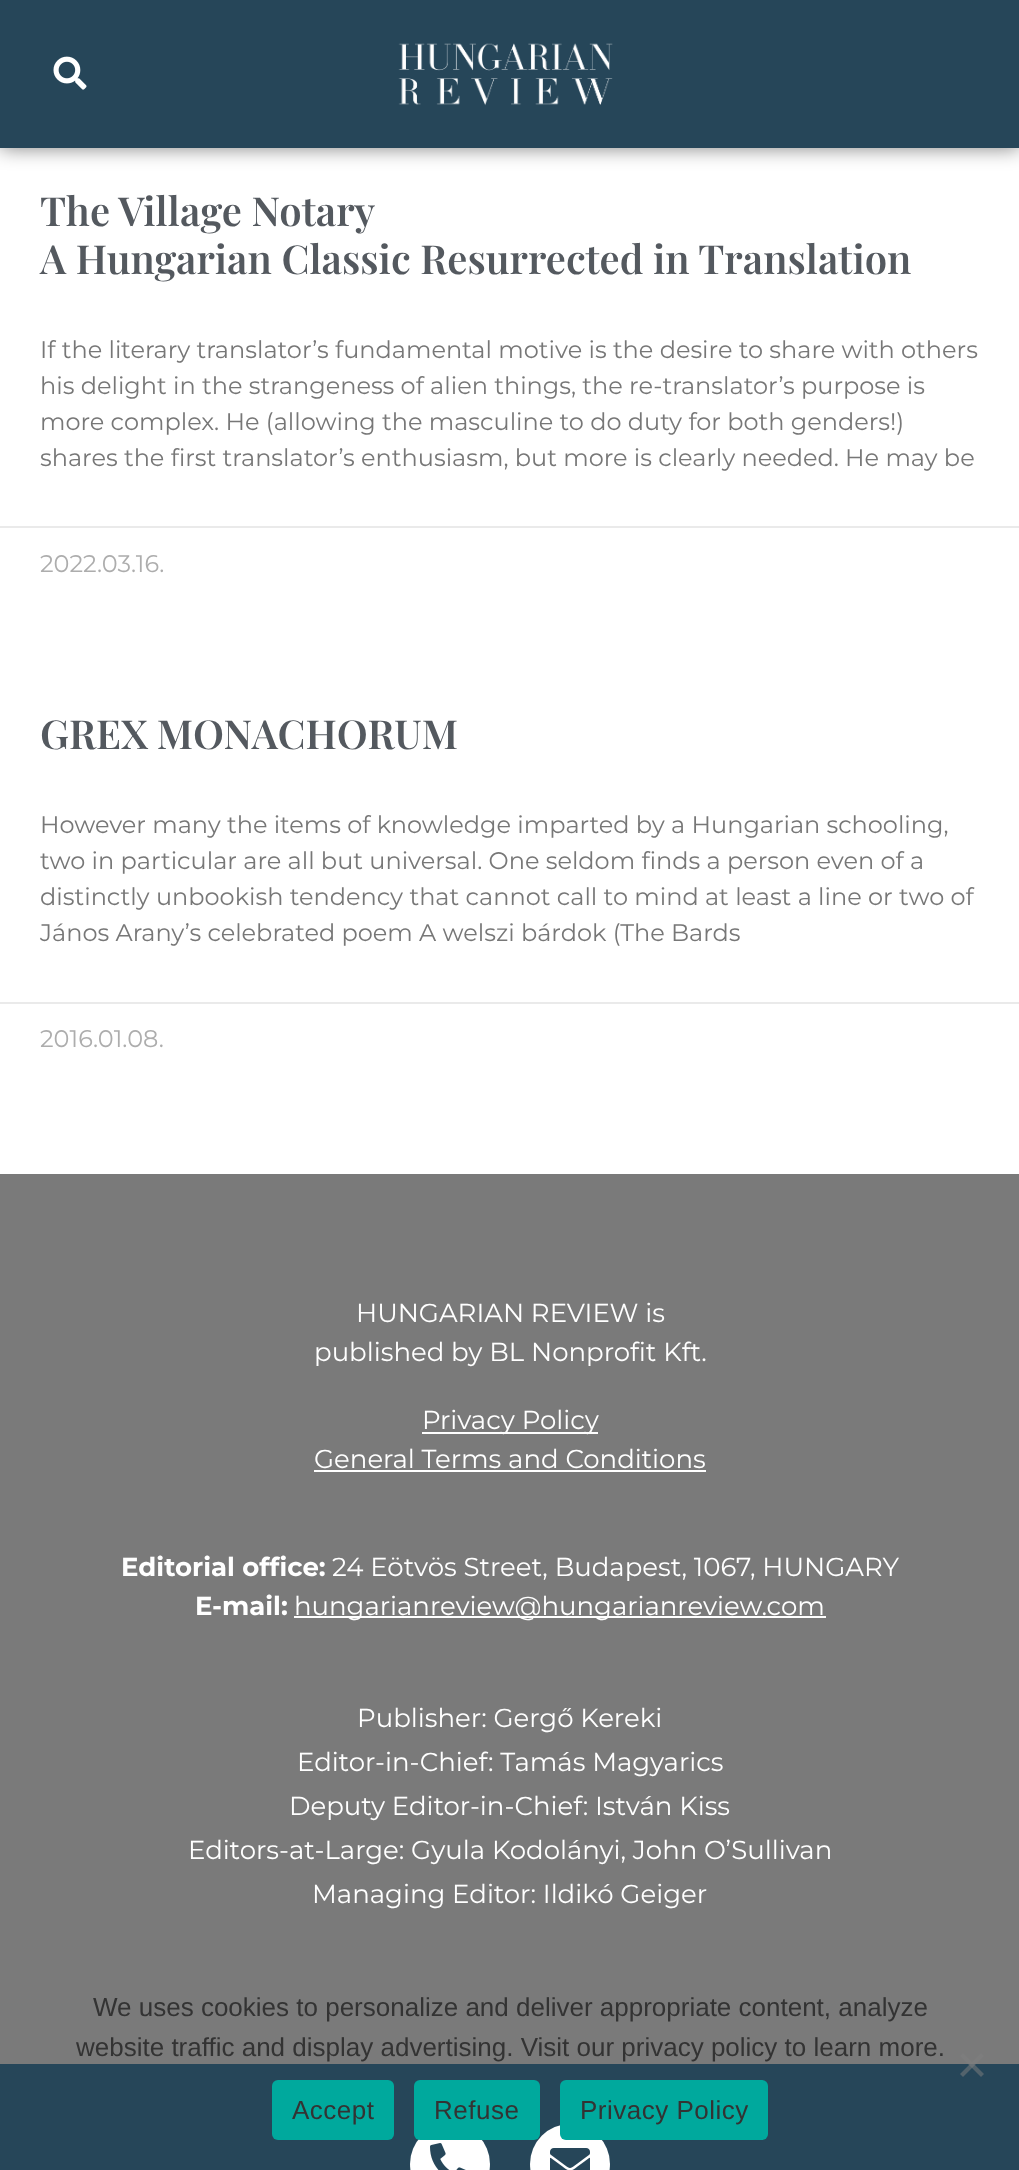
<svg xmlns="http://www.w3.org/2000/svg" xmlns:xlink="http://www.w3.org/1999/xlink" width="1019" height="2170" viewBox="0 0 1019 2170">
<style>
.cls-1{font:600 40px Playfair Display;fill:#54595f}
.cls-2{font:24px Montserrat;fill:#777777}
.cls-3{font:24px Montserrat;fill:#adadad}
.cls-4{font:26px Montserrat;fill:#ffffff}
.cls-5{font:bold 26px Montserrat;fill:#ffffff}
.cls-6{font:26px Liberation Sans;fill:#333333}
.cls-7{font:26px Liberation Sans;letter-spacing:0.5px;fill:#333333}
</style>
<rect width="100%" height="100%" fill="#ffffff"/>
<rect fill="#000000" fill-opacity="0.5" filter="blur(10px)" x="0" y="0" width="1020" height="148"/>
<rect fill="#264659" x="0" y="0" width="1019" height="148"/>
<image xlink:href="image0.png" x="53" y="56" width="34" height="34"/>
<image xlink:href="image1.png" x="398" y="43" width="215" height="63"/>
<rect fill="#eaeaea" x="0" y="526" width="1019" height="2"/>
<rect fill="#eaeaea" x="0" y="1002" width="1019" height="2"/>
<rect fill="#7a7a7a" x="0" y="1174" width="1019" height="890"/>
<rect fill="#ffffff" x="422" y="1432" width="176" height="2"/>
<rect fill="#ffffff" x="314" y="1470" width="392" height="2"/>
<rect fill="#ffffff" x="294" y="1616" width="532" height="2"/>
<rect fill="#264659" x="0" y="2064" width="1019" height="106"/>
<circle fill="#ffffff" cx="450" cy="2164" r="40"/>
<image xlink:href="image2.png" x="430" y="2143" width="36" height="27"/>
<circle fill="#ffffff" cx="570" cy="2164" r="40"/>
<image xlink:href="image3.png" x="550" y="2148" width="40" height="22"/>
<path fill="#808080" fill-opacity="0.5" d="M981 2053L984 2056L963 2077L960 2074Z"/>
<path fill="#808080" fill-opacity="0.5" d="M960 2056L963 2053L984 2074L981 2077Z"/>
<rect fill="#00a99d" x="272" y="2080" width="122" height="60" rx="6"/>
<rect fill="#00a99d" x="414" y="2080" width="126" height="60" rx="6"/>
<rect fill="#00a99d" x="560" y="2080" width="208" height="60" rx="6"/>
<text class="cls-1"><tspan x="40" y="226">The Village Notary</tspan><tspan x="40" y="274">A Hungarian Classic Resurrected in Translation</tspan></text>
<text class="cls-2"><tspan x="40" y="358">If the literary translator’s fundamental motive is the desire to share with others</tspan><tspan x="40" y="394">his delight in the strangeness of alien things, the re-translator’s purpose is</tspan><tspan x="40" y="430">more complex. He (allowing the masculine to do duty for both genders!)</tspan><tspan x="40" y="466">shares the first translator’s enthusiasm, but more is clearly needed. He may be</tspan></text>
<text class="cls-3" x="40" y="572">2022.03.16.</text>
<text class="cls-1" x="40" y="749">GREX MONACHORUM</text>
<text class="cls-2"><tspan x="40" y="833">However many the items of knowledge imparted by a Hungarian schooling,</tspan><tspan x="40" y="869">two in particular are all but universal. One seldom finds a person even of a</tspan><tspan x="40" y="905">distinctly unbookish tendency that cannot call to mind at least a line or two of</tspan><tspan x="40" y="941">János Arany’s celebrated poem A welszi bárdok (The Bards</tspan></text>
<text class="cls-3" x="40" y="1047">2016.01.08.</text>
<text class="cls-4" x="356" y="1322">HUNGARIAN REVIEW is</text>
<text class="cls-4" x="314" y="1361">published by BL Nonprofit Kft.</text>
<text class="cls-4" x="422" y="1429">Privacy Policy</text>
<text class="cls-4" x="314" y="1468">General Terms and Conditions</text>
<text class="cls-5" x="121" y="1576">Editorial office:</text>
<text class="cls-4" x="332" y="1576">24 Eötvös Street, Budapest, 1067, HUNGARY</text>
<text class="cls-5" x="195" y="1615">E-mail:</text>
<text class="cls-4" x="294" y="1615">hungarianreview@hungarianreview.com</text>
<text class="cls-4" x="357" y="1727">Publisher: Gergő Kereki</text>
<text class="cls-4" x="297" y="1771">Editor-in-Chief: Tamás Magyarics</text>
<text class="cls-4" x="289" y="1815">Deputy Editor-in-Chief: István Kiss</text>
<text class="cls-4" x="188" y="1859">Editors-at-Large: Gyula Kodolányi, John O’Sullivan</text>
<text class="cls-4" x="312" y="1903">Managing Editor: Ildikó Geiger</text>
<text class="cls-6" x="93" y="2016">We uses cookies to personalize and deliver appropriate content, analyze</text>
<text class="cls-6" x="76" y="2056">website traffic and display advertising. Visit our privacy policy to learn more.</text>
<text class="cls-7" x="292" y="2119">Accept</text>
<text class="cls-7" x="434" y="2119">Refuse</text>
<text class="cls-7" x="580" y="2119">Privacy Policy</text>
</svg>
